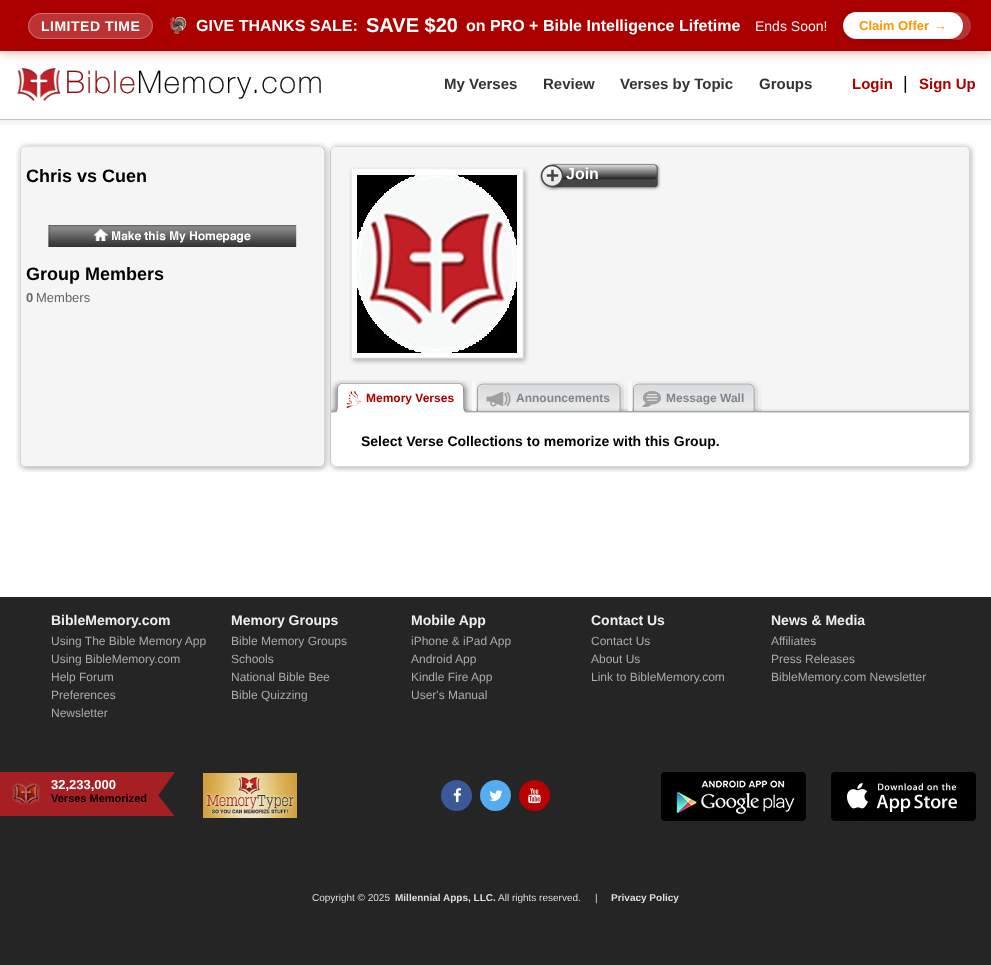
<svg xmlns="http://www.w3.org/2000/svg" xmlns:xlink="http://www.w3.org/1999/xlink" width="991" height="965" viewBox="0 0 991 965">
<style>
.cls-1{font:bold 14px Liberation Sans;letter-spacing:0.5px;fill:#ffffff}
.cls-2{font:bold 16px Noto Color Emoji;fill:#ffffff}
.cls-3{font:bold 16px Liberation Sans;fill:#ffffff}
.cls-4{font:bold 20px Liberation Sans;fill:#ffffff}
.cls-5{font:14px Liberation Sans;fill:#fbf2f2}
.cls-6{font:bold 13px Liberation Sans;fill:#ff9500}
.cls-7{font:bold 15px Liberation Sans;fill:#333333}
.cls-8{font:bold 15px Liberation Sans;fill:#aa0000}
.cls-9{font:18px Liberation Sans;fill:#000000}
.cls-10{font:bold 18px Liberation Sans;fill:#000000}
.cls-11{font:bold 13px Liberation Sans;fill:#666666}
.cls-12{font:13px Liberation Sans;fill:#666666}
.cls-13{font:bold 12px Liberation Sans;fill:#aa0000}
.cls-14{font:bold 12px Liberation Sans;fill:#81868d}
.cls-15{font:bold 14px Liberation Sans;fill:#000000}
.cls-16{font:bold 14px Liberation Sans;fill:#eeeeee}
.cls-17{font:12px Liberation Sans;fill:#aaaaaa}
.cls-18{font:bold 13px Liberation Sans;fill:#ffffff}
.cls-19{font:bold 11px Liberation Sans;fill:#000000}
.cls-20{font:10px Liberation Sans;fill:#dddddd}
.cls-21{font:bold 10px Liberation Sans;fill:#dddddd}
</style>
<rect width="100%" height="100%" fill="#ffffff"/>
<image xlink:href="image0.png" x="16" y="67" width="305" height="34"/>
<rect fill="#aa0000" fill-opacity="0.3" filter="blur(5px)" x="0" y="2" width="991" height="51"/>
<rect fill="#aa0000" x="0" y="0" width="991" height="51"/>
<rect fill="#bb3333" x="28" y="13" width="125" height="26" rx="13"/>
<rect fill="none" stroke="#ffffff" stroke-opacity="0.3" x="28.5" y="13.5" width="124" height="25" rx="12.5"/>
<rect fill="#000000" fill-opacity="0.1" filter="blur(4px)" x="843" y="14" width="120" height="27" rx="13.5"/>
<rect fill="#ffffff" x="843" y="12" width="120" height="27" rx="13.5"/>
<image xlink:href="image1.png" x="0" y="119" width="991" height="6"/>
<image xlink:href="image2.png" x="16" y="142" width="960" height="12"/>
<image xlink:href="image3.png" x="16" y="154" width="960" height="305"/>
<image xlink:href="image4.png" x="48" y="225" width="249" height="22"/>
<rect fill="#f5f5f5" x="331" y="154" width="638" height="257"/>
<image xlink:href="image5.png" x="349" y="167" width="180" height="198"/>
<image xlink:href="image6.png" x="357" y="175" width="160" height="178"/>
<image xlink:href="image7.png" x="539" y="163" width="122" height="28"/>
<rect fill="#444444" x="546" y="169" width="13" height="13"/>
<image xlink:href="image8.png" x="546" y="169" width="13" height="13"/>
<image xlink:href="image19.png" x="331" y="409" width="638" height="4"/>
<image xlink:href="image9.png" x="331" y="380" width="11" height="33"/>
<image xlink:href="image10.png" x="342" y="380" width="117" height="33"/>
<rect fill="#aa0000" x="346" y="391" width="15" height="17"/>
<image xlink:href="image11.png" x="343" y="389" width="20" height="22"/>
<image xlink:href="image12.png" x="459" y="380" width="13" height="33"/>
<image xlink:href="image13.png" x="472" y="381" width="11" height="30"/>
<image xlink:href="image14.png" x="483" y="381" width="132" height="30"/>
<image xlink:href="image15.png" x="486" y="391" width="25" height="16"/>
<image xlink:href="image16.png" x="615" y="381" width="13" height="30"/>
<image xlink:href="image13.png" x="628" y="381" width="11" height="30"/>
<image xlink:href="image17.png" x="639" y="381" width="110" height="30"/>
<image xlink:href="image18.png" x="641" y="391" width="20" height="16"/>
<image xlink:href="image16.png" x="749" y="381" width="13" height="30"/>
<image xlink:href="image20.png" x="16" y="459" width="960" height="13"/>
<rect fill="#252525" x="0" y="597" width="991" height="368"/>
<rect fill="#a61f23" x="0" y="772" width="9" height="44"/>
<image xlink:href="image21.png" x="9" y="772" width="166" height="44"/>
<image xlink:href="image22.png" x="12" y="783" width="29" height="22"/>
<image xlink:href="image23.png" x="203" y="773" width="94" height="45"/>
<image xlink:href="image24.png" x="661" y="772" width="145" height="49"/>
<image xlink:href="image25.png" x="831" y="772" width="145" height="49"/>
<circle fill="#3b5998" cx="456.5" cy="795.5" r="15.5"/>
<image xlink:href="image26.png" x="453" y="788" width="9" height="15"/>
<circle fill="#55acee" cx="495.5" cy="795.5" r="15.5"/>
<image xlink:href="image27.png" x="489" y="790" width="14" height="11"/>
<circle fill="#bb0000" cx="534.5" cy="795.5" r="15.5"/>
<image xlink:href="image28.png" x="528" y="788" width="13" height="16"/>
<text class="cls-1" x="41" y="31">LIMITED TIME</text>
<text class="cls-2" x="168" y="31">🦃</text>
<text class="cls-3" x="196" y="31">GIVE THANKS SALE:</text>
<text class="cls-4" x="366" y="32">SAVE $20</text>
<text class="cls-3" x="466" y="31">on PRO + Bible Intelligence Lifetime</text>
<text class="cls-5" x="755" y="31">Ends Soon!</text>
<text class="cls-6" x="859" y="30">Claim Offer</text>
<text class="cls-6" x="934" y="30">→</text>
<circle fill="#ffffff" fill-opacity="0.2" cx="957" cy="26" r="14"/>
<text class="cls-7" x="444" y="89">My Verses</text>
<text class="cls-7" x="543" y="89">Review</text>
<text class="cls-7" x="620" y="89">Verses by Topic</text>
<text class="cls-7" x="759" y="89">Groups</text>
<text class="cls-8" x="852" y="89">Login</text>
<text class="cls-9" x="903" y="89">|</text>
<text class="cls-8" x="919" y="89">Sign Up</text>
<text class="cls-10" x="26" y="182">Chris vs Cuen</text>
<text class="cls-10" x="26" y="280">Group Members</text>
<text class="cls-11" x="26" y="302">0</text>
<text class="cls-12" x="36" y="302">Members</text>
<text class="cls-3" x="566" y="179">Join</text>
<text class="cls-13" x="366" y="402">Memory Verses</text>
<text class="cls-14" x="516" y="402">Announcements</text>
<text class="cls-14" x="666" y="402">Message Wall</text>
<text class="cls-15" x="361" y="446">Select Verse Collections to memorize with this Group.</text>
<text class="cls-16" x="51" y="625">BibleMemory.com</text>
<text class="cls-17"><tspan x="51" y="645">Using The Bible Memory App</tspan><tspan x="51" y="663">Using BibleMemory.com</tspan><tspan x="51" y="681">Help Forum</tspan><tspan x="51" y="699">Preferences</tspan><tspan x="51" y="717">Newsletter</tspan></text>
<text class="cls-16" x="231" y="625">Memory Groups</text>
<text class="cls-17"><tspan x="231" y="645">Bible Memory Groups</tspan><tspan x="231" y="663">Schools</tspan><tspan x="231" y="681">National Bible Bee</tspan><tspan x="231" y="699">Bible Quizzing</tspan></text>
<text class="cls-16" x="411" y="625">Mobile App</text>
<text class="cls-17"><tspan x="411" y="645">iPhone &amp; iPad App</tspan><tspan x="411" y="663">Android App</tspan><tspan x="411" y="681">Kindle Fire App</tspan><tspan x="411" y="699">User's Manual</tspan></text>
<text class="cls-16" x="591" y="625">Contact Us</text>
<text class="cls-17"><tspan x="591" y="645">Contact Us</tspan><tspan x="591" y="663">About Us</tspan><tspan x="591" y="681">Link to BibleMemory.com</tspan></text>
<text class="cls-16" x="771" y="625">News &amp; Media</text>
<text class="cls-17"><tspan x="771" y="645">Affiliates</tspan><tspan x="771" y="663">Press Releases</tspan><tspan x="771" y="681">BibleMemory.com Newsletter</tspan></text>
<text class="cls-18" x="51" y="789">32,233,000</text>
<text class="cls-19" x="51" y="802">Verses Memorized</text>
<text class="cls-20" x="312" y="901">Copyright © 2025</text>
<text class="cls-21" x="395" y="901">Millennial Apps, LLC.</text>
<text class="cls-20" x="498" y="901">All rights reserved.</text>
<text class="cls-20" x="595" y="901">|</text>
<text class="cls-21" x="611" y="901">Privacy Policy</text>
</svg>
